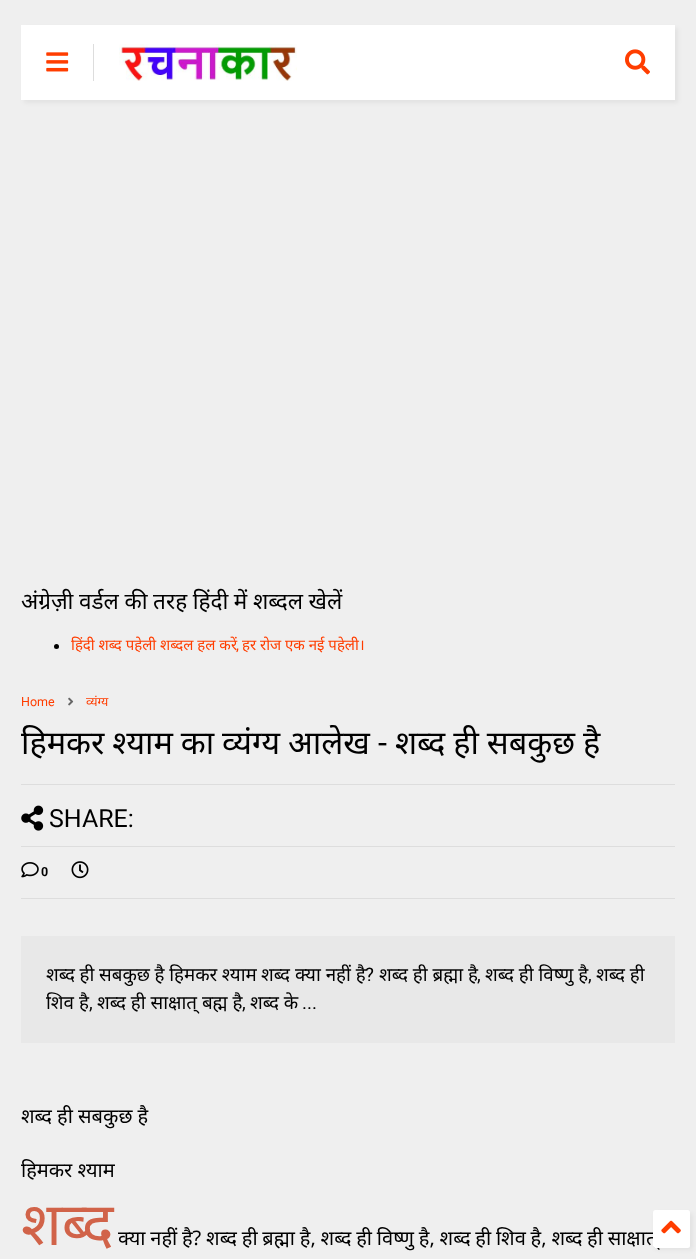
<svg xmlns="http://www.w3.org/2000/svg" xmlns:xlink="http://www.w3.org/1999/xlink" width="696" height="1259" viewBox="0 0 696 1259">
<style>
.cls-1{font:22.5px Noto Sans;fill:#000000}
.cls-2{font:15px Noto Sans;fill:#ff3d00}
.cls-3{font:15px Roboto;fill:#ff3d00}
.cls-4{font:12.5px Roboto;fill:#ff3d00}
.cls-5{font:12.5px Noto Sans;fill:#ff3d00}
.cls-6{font:32.5px Noto Sans;fill:#000000}
.cls-7{font:32.5px Roboto;fill:#000000}
.cls-8{font:25px Roboto;fill:#000000}
.cls-9{font:bold 12.5px Roboto;fill:#000000}
.cls-10{font:18.75px Noto Sans;fill:#000000}
.cls-11{font:18.75px Roboto;fill:#000000}
.cls-12{font:20px Noto Sans;fill:#000000}
.cls-13{font:60px Noto Sans;fill:#d16349}
</style>
<rect width="100%" height="100%" fill="#efefef"/>
<rect fill="#000000" fill-opacity="0.05" filter="blur(2px)" x="24" y="28" width="654" height="75"/>
<rect fill="#ffffff" x="21" y="25" width="654" height="75"/>
<image xlink:href="image0.png" x="46" y="52" width="23" height="20"/>
<rect fill="#dddddd" x="93" y="44" width="1" height="37"/>
<image xlink:href="image1.png" x="119" y="44" width="178" height="37"/>
<image xlink:href="image2.png" x="625" y="49" width="25" height="26"/>
<circle fill="#000000" cx="56.5" cy="646.5" r="2.5"/>
<image xlink:href="image3.png" x="68" y="697" width="6" height="9"/>
<rect fill="#dddddd" x="21" y="846" width="654" height="1"/>
<rect fill="#dddddd" x="21" y="784" width="654" height="1"/>
<image xlink:href="image4.png" x="21" y="805" width="23" height="26"/>
<rect fill="#dddddd" x="21" y="898" width="654" height="1"/>
<image xlink:href="image5.png" x="21" y="862" width="18" height="16"/>
<image xlink:href="image6.png" x="71" y="861" width="18" height="18"/>
<rect fill="#e8e8e8" x="21" y="936" width="654" height="107"/>
<rect fill="#000000" fill-opacity="0.05" filter="blur(2px)" x="655" y="1213" width="38" height="37" rx="2.5"/>
<text class="cls-1" x="21" y="609" word-spacing="-0.25">अंग्रेज़ी वर्डल की तरह हिंदी में शब्दल खेलें</text>
<text class="cls-2" x="71" y="650">हिंदी शब्द पहेली शब्दल हल करें</text>
<text class="cls-2" x="242" y="650">हर रोज एक नई पहेली।</text>
<text class="cls-3" x="236" y="650">,</text>
<text class="cls-4" x="21" y="706">Home</text>
<text class="cls-5" x="86" y="706">व्यंग्य</text>
<text class="cls-6" x="21" y="754" word-spacing="-0.5">हिमकर श्याम का व्यंग्य आलेख</text>
<text class="cls-7" x="378" y="754">-</text>
<text class="cls-6" x="395" y="754" word-spacing="-0.5">शब्द ही सबकुछ है</text>
<text class="cls-8" x="49" y="827">SHARE:</text>
<text class="cls-9" x="41" y="876">0</text>
<text class="cls-10" x="46" y="981" word-spacing="-0.25">शब्द ही सबकुछ है हिमकर श्याम</text>
<text class="cls-10" x="261" y="981">शब्द</text>
<text class="cls-10" x="295" y="981">क्या नहीं है</text>
<text class="cls-11" x="365" y="981">?</text>
<text class="cls-10" x="379" y="981">शब्द ही ब्रह्मा है</text>
<text class="cls-11" x="477" y="981">,</text>
<text class="cls-10" x="485" y="981">शब्द ही विष्णु है</text>
<text class="cls-11" x="588" y="981">,</text>
<text class="cls-10" x="596" y="981">शब्द ही</text>
<text class="cls-10" x="46" y="1009">शिव है</text>
<text class="cls-11" x="89" y="1009">,</text>
<text class="cls-10" x="97" y="1009">शब्द ही साक्षात् बह्म है</text>
<text class="cls-11" x="242" y="1009">,</text>
<text class="cls-10" x="250" y="1009">शब्द के</text>
<text class="cls-11" x="302" y="1009">...</text>
<text class="cls-12" x="21" y="1123">शब्द ही सबकुछ है</text>
<text class="cls-12" x="21" y="1177">हिमकर श्याम</text>
<text class="cls-13" x="21" y="1245">शब्द</text>
<text class="cls-12" x="118" y="1245" word-spacing="-0.4">क्या नहीं है? शब्द ही ब्रह्मा है, शब्द ही विष्णु है, शब्द ही शिव है, शब्द ही साक्षात्</text>
<rect fill="#ffffff" x="653" y="1210" width="37" height="38" rx="2.5"/>
<image xlink:href="image7.png" x="661" y="1220" width="20" height="14"/>
</svg>
